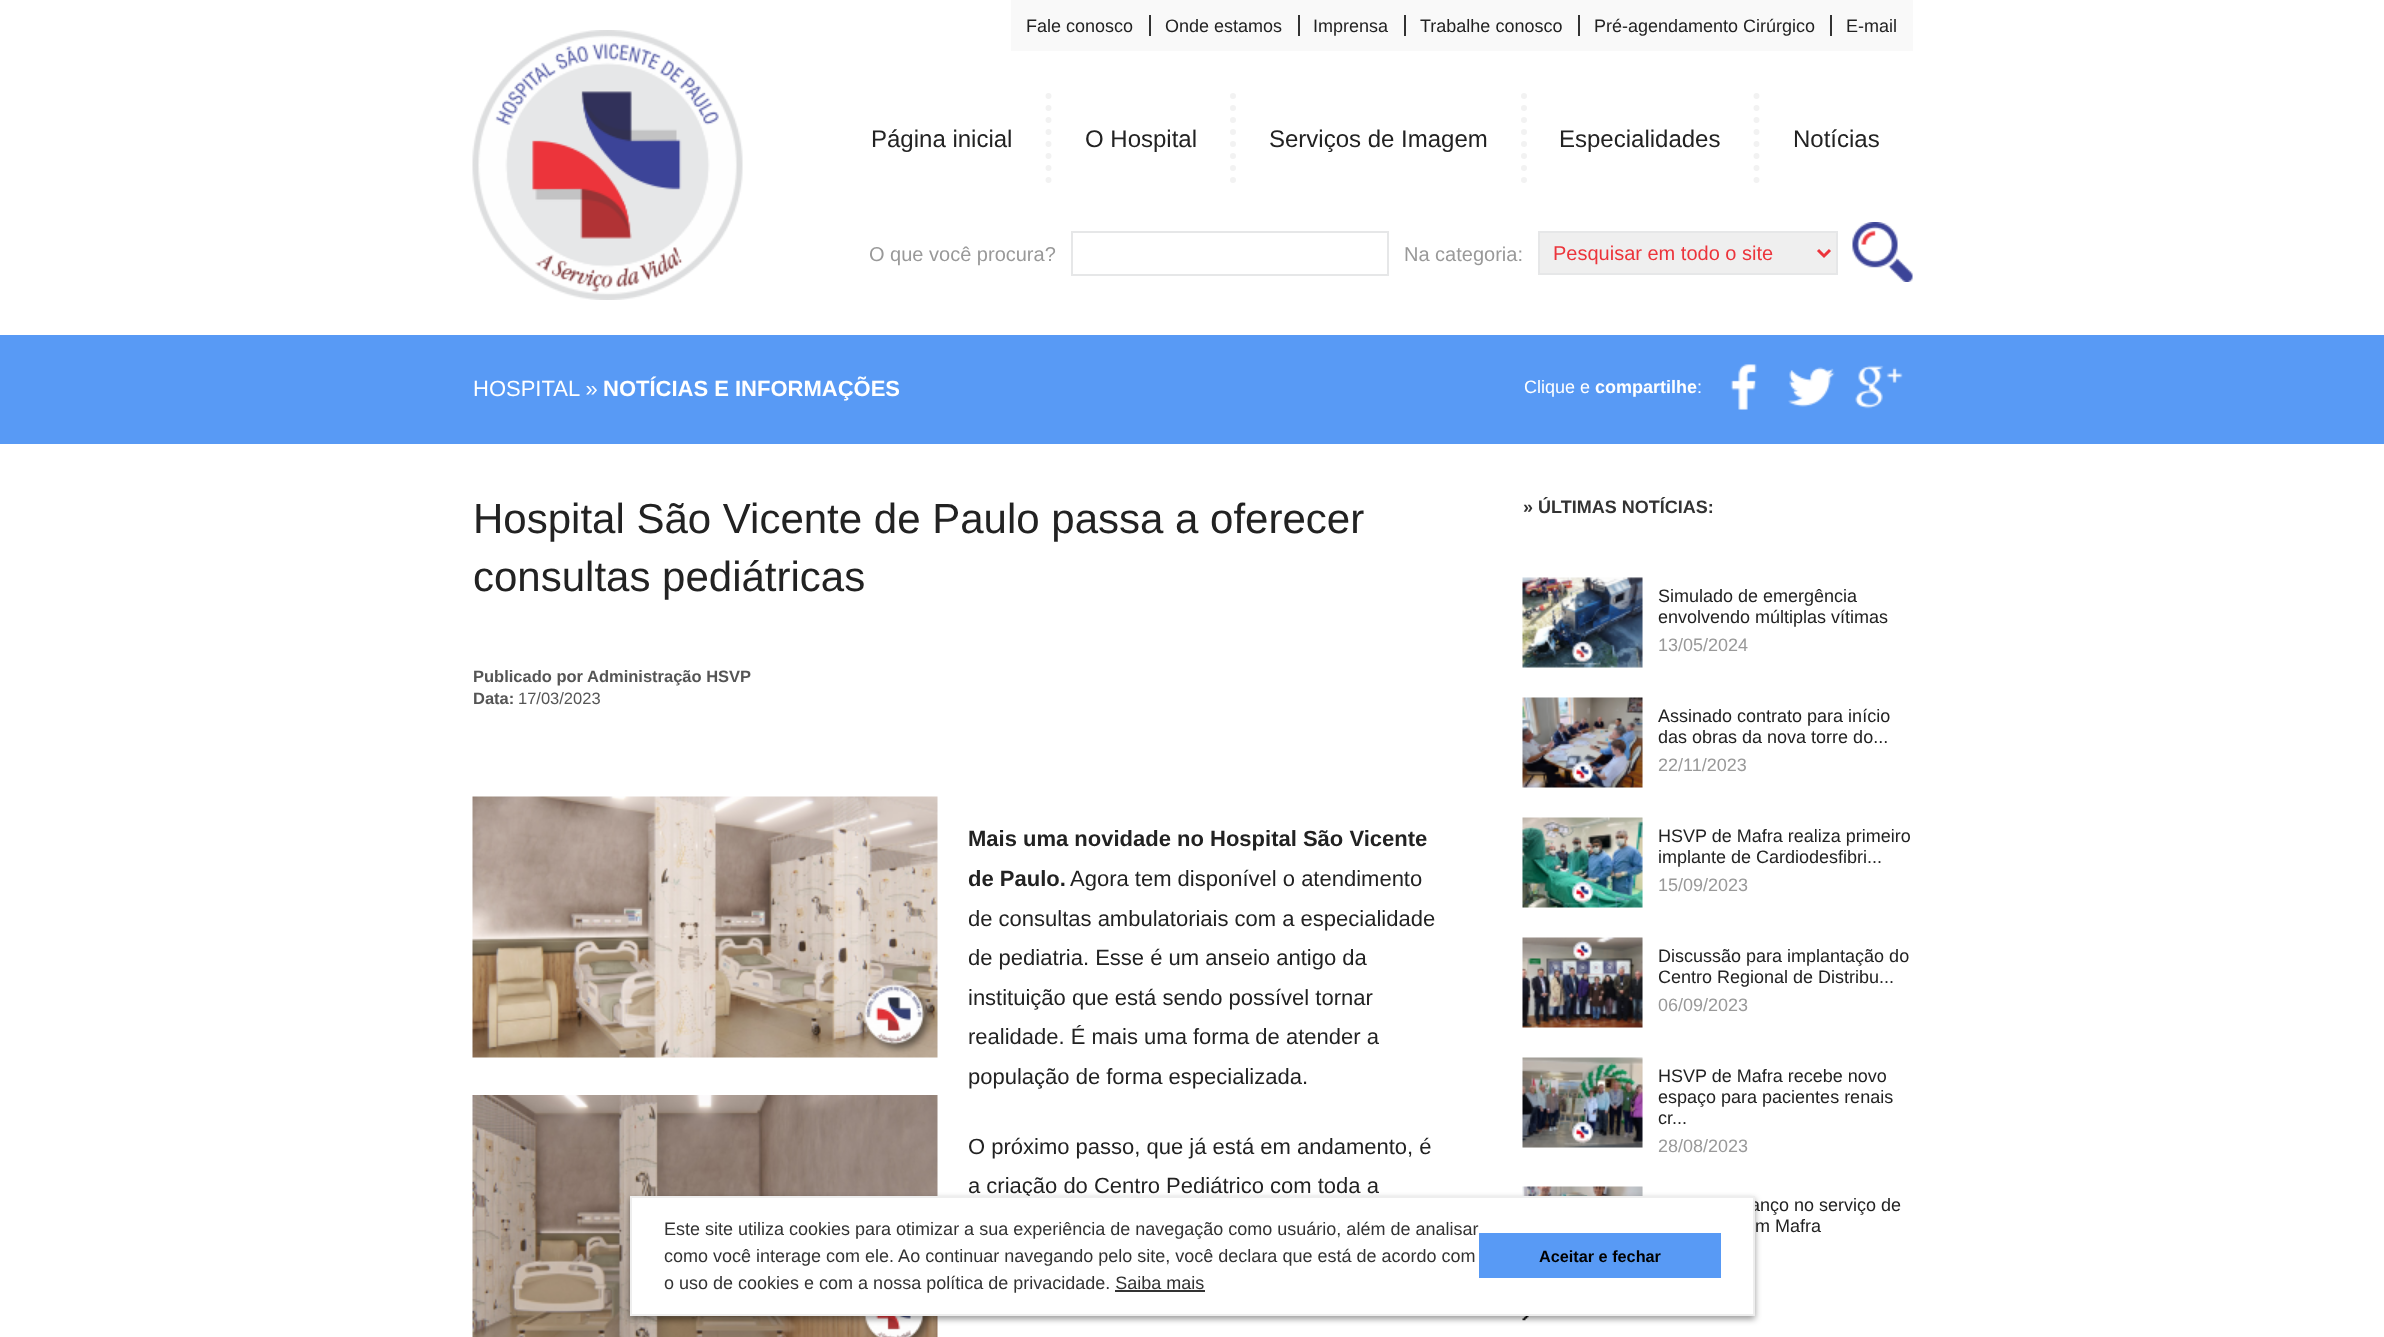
<svg xmlns="http://www.w3.org/2000/svg" xmlns:xlink="http://www.w3.org/1999/xlink" width="2384" height="1337" viewBox="0 0 2384 1337">
<style>
.cls-1{font:18px Liberation Sans;fill:#222222}
.cls-2{font:24px Liberation Sans;fill:#222222}
.cls-3{font:20px Liberation Sans;fill:#999999}
.cls-4{font:20px Liberation Sans;fill:#ec343b}
.cls-5{font:22px Liberation Sans;fill:#ffffff}
.cls-6{font:bold 22px Liberation Sans;fill:#ffffff}
.cls-7{font:18px Liberation Sans;fill:#ffffff}
.cls-8{font:bold 18px Liberation Sans;fill:#ffffff}
.cls-9{font:42px Liberation Sans;fill:#222222}
.cls-10{font:bold 16.5px Liberation Sans;fill:#555555}
.cls-11{font:16.5px Liberation Sans;fill:#555555}
.cls-12{font:bold 22px Liberation Sans;fill:#222222}
.cls-13{font:22px Liberation Sans;fill:#222222}
.cls-14{font:bold 18px Liberation Sans;fill:#333333}
.cls-15{font:18px Liberation Sans;fill:#999999}
.cls-16{font:18px Liberation Sans;fill:#333333}
.cls-17{font:bold 16.25px Liberation Sans;fill:#000000}
</style>
<rect width="100%" height="100%" fill="#ffffff"/>
<rect fill="#f9f9f9" x="1011" y="0" width="902" height="51"/>
<rect fill="#333333" x="1149" y="15" width="2" height="21"/>
<rect fill="#333333" x="1298" y="15" width="2" height="21"/>
<rect fill="#333333" x="1404" y="15" width="2" height="21"/>
<rect fill="#333333" x="1578" y="15" width="2" height="21"/>
<rect fill="#333333" x="1830" y="15" width="2" height="21"/>
<image xlink:href="image0.png" x="472" y="30" width="271" height="270"/>
<path fill="none" stroke="#f2f2f2" stroke-width="6" stroke-linecap="round" stroke-dasharray="0 12" d="M1048.5 96V186"/>
<path fill="none" stroke="#f2f2f2" stroke-width="6" stroke-linecap="round" stroke-dasharray="0 12" d="M1233 96V186"/>
<path fill="none" stroke="#f2f2f2" stroke-width="6" stroke-linecap="round" stroke-dasharray="0 12" d="M1524 96V186"/>
<path fill="none" stroke="#f2f2f2" stroke-width="6" stroke-linecap="round" stroke-dasharray="0 12" d="M1756.5 96V186"/>
<rect fill="none" stroke="#e6e7e8" stroke-width="2" x="1072" y="232" width="316" height="43"/>
<rect fill="#efefef" stroke="#e6e7e8" stroke-width="2" x="1539" y="232" width="298" height="42"/>
<path fill="none" stroke="#ec343b" stroke-width="3" d="M1818 250L1824 256L1830 250"/>
<image xlink:href="image1.png" x="1852" y="222" width="61" height="60"/>
<rect fill="#589af5" x="0" y="335" width="2384" height="109"/>
<image xlink:href="image2.png" x="1730" y="364" width="27" height="46"/>
<image xlink:href="image3.png" x="1788" y="367" width="47" height="40"/>
<image xlink:href="image4.png" x="1855" y="365" width="48" height="44"/>
<image xlink:href="image5.png" x="472" y="796" width="466" height="262"/>
<image xlink:href="image6.png" x="472" y="1095" width="466" height="242"/>
<rect fill="#f9f9f9" x="1523" y="578" width="120" height="90"/>
<image xlink:href="image7.png" x="1522" y="577" width="121" height="91"/>
<rect fill="#f9f9f9" x="1523" y="698" width="120" height="90"/>
<image xlink:href="image8.png" x="1522" y="697" width="121" height="91"/>
<rect fill="#f9f9f9" x="1523" y="818" width="120" height="90"/>
<image xlink:href="image9.png" x="1522" y="817" width="121" height="91"/>
<rect fill="#f9f9f9" x="1523" y="938" width="120" height="90"/>
<image xlink:href="image10.png" x="1522" y="937" width="121" height="91"/>
<rect fill="#f9f9f9" x="1523" y="1058" width="120" height="90"/>
<image xlink:href="image11.png" x="1522" y="1057" width="121" height="91"/>
<rect fill="#f9f9f9" x="1642" y="1187" width="1" height="9"/>
<image xlink:href="image12.png" x="1522" y="1186" width="121" height="10"/>
<image xlink:href="image13.png" x="1522" y="1316" width="7" height="5"/>
<rect fill="#000000" fill-opacity="0.4" filter="blur(3px)" x="630" y="1199" width="1125" height="120"/>
<text class="cls-1" x="1026" y="32">Fale conosco</text>
<text class="cls-1" x="1165" y="32">Onde estamos</text>
<text class="cls-1" x="1313" y="32">Imprensa</text>
<text class="cls-1" x="1420" y="32">Trabalhe conosco</text>
<text class="cls-1" x="1594" y="32">Pré-agendamento Cirúrgico</text>
<text class="cls-1" x="1846" y="32">E-mail</text>
<text class="cls-2" x="871" y="147">Página inicial</text>
<text class="cls-2" x="1085" y="147">O Hospital</text>
<text class="cls-2" x="1269" y="147">Serviços de Imagem</text>
<text class="cls-2" x="1559" y="147">Especialidades</text>
<text class="cls-2" x="1793" y="147">Notícias</text>
<text class="cls-3" x="869" y="261">O que você procura?</text>
<text class="cls-3" x="1404" y="261">Na categoria:</text>
<text class="cls-4" x="1553" y="260">Pesquisar em todo o site</text>
<text class="cls-5" x="473" y="396">HOSPITAL »</text>
<text class="cls-6" x="603" y="396">NOTÍCIAS E INFORMAÇÕES</text>
<text class="cls-7" x="1524" y="393">Clique e</text>
<text class="cls-8" x="1595" y="393">compartilhe</text>
<text class="cls-7" x="1697" y="393">:</text>
<text class="cls-9"><tspan x="473" y="533">Hospital São Vicente de Paulo passa a oferecer</tspan><tspan x="473" y="591">consultas pediátricas</tspan></text>
<text class="cls-10"><tspan x="473" y="682">Publicado por Administração HSVP</tspan><tspan x="473" y="704">Data:</tspan></text>
<text class="cls-11" x="518" y="704">17/03/2023</text>
<text class="cls-12"><tspan x="968" y="846">Mais uma novidade no Hospital São Vicente</tspan><tspan x="968" y="886">de Paulo.</tspan></text>
<text class="cls-13" x="1070" y="886">Agora tem disponível o atendimento</text>
<text class="cls-13"><tspan x="968" y="926">de consultas ambulatoriais com a especialidade</tspan><tspan x="968" y="965">de pediatria. Esse é um anseio antigo da</tspan><tspan x="968" y="1005">instituição que está sendo possível tornar</tspan><tspan x="968" y="1044">realidade. É mais uma forma de atender a</tspan><tspan x="968" y="1084">população de forma especializada.</tspan></text>
<text class="cls-13"><tspan x="968" y="1154">O próximo passo, que já está em andamento, é</tspan><tspan x="968" y="1193">a criação do Centro Pediátrico com toda a</tspan></text>
<text class="cls-14" x="1523" y="513">» ÚLTIMAS NOTÍCIAS:</text>
<text class="cls-1"><tspan x="1658" y="602">Simulado de emergência</tspan><tspan x="1658" y="623">envolvendo múltiplas vítimas</tspan></text>
<text class="cls-15" x="1658" y="651">13/05/2024</text>
<text class="cls-1"><tspan x="1658" y="722">Assinado contrato para início</tspan><tspan x="1658" y="743">das obras da nova torre do...</tspan></text>
<text class="cls-15" x="1658" y="771">22/11/2023</text>
<text class="cls-1"><tspan x="1658" y="842">HSVP de Mafra realiza primeiro</tspan><tspan x="1658" y="863">implante de Cardiodesfibri...</tspan></text>
<text class="cls-15" x="1658" y="891">15/09/2023</text>
<text class="cls-1"><tspan x="1658" y="962">Discussão para implantação do</tspan><tspan x="1658" y="983">Centro Regional de Distribu...</tspan></text>
<text class="cls-15" x="1658" y="1011">06/09/2023</text>
<text class="cls-1"><tspan x="1658" y="1082">HSVP de Mafra recebe novo</tspan><tspan x="1658" y="1103">espaço para pacientes renais</tspan><tspan x="1658" y="1124">cr...</tspan></text>
<text class="cls-15" x="1658" y="1152">28/08/2023</text>
<text class="cls-1" x="1750" y="1211">anço no serviço de</text>
<text class="cls-1" x="1755" y="1232">m Mafra</text>
<rect fill="#ffffff" stroke="#eeeeee" stroke-width="2" x="631" y="1197" width="1123" height="118"/>
<text class="cls-16"><tspan x="664" y="1235">Este site utiliza cookies para otimizar a sua experiência de navegação como usuário, além de analisar</tspan><tspan x="664" y="1262">como você interage com ele. Ao continuar navegando pelo site, você declara que está de acordo com</tspan><tspan x="664" y="1289">o uso de cookies e com a nossa política de privacidade. Saiba mais</tspan></text>
<rect fill="#333333" x="1115" y="1290" width="90" height="2"/>
<rect fill="#589af5" x="1479" y="1233" width="242" height="45"/>
<text class="cls-17" x="1539" y="1262">Aceitar e fechar</text>
</svg>
